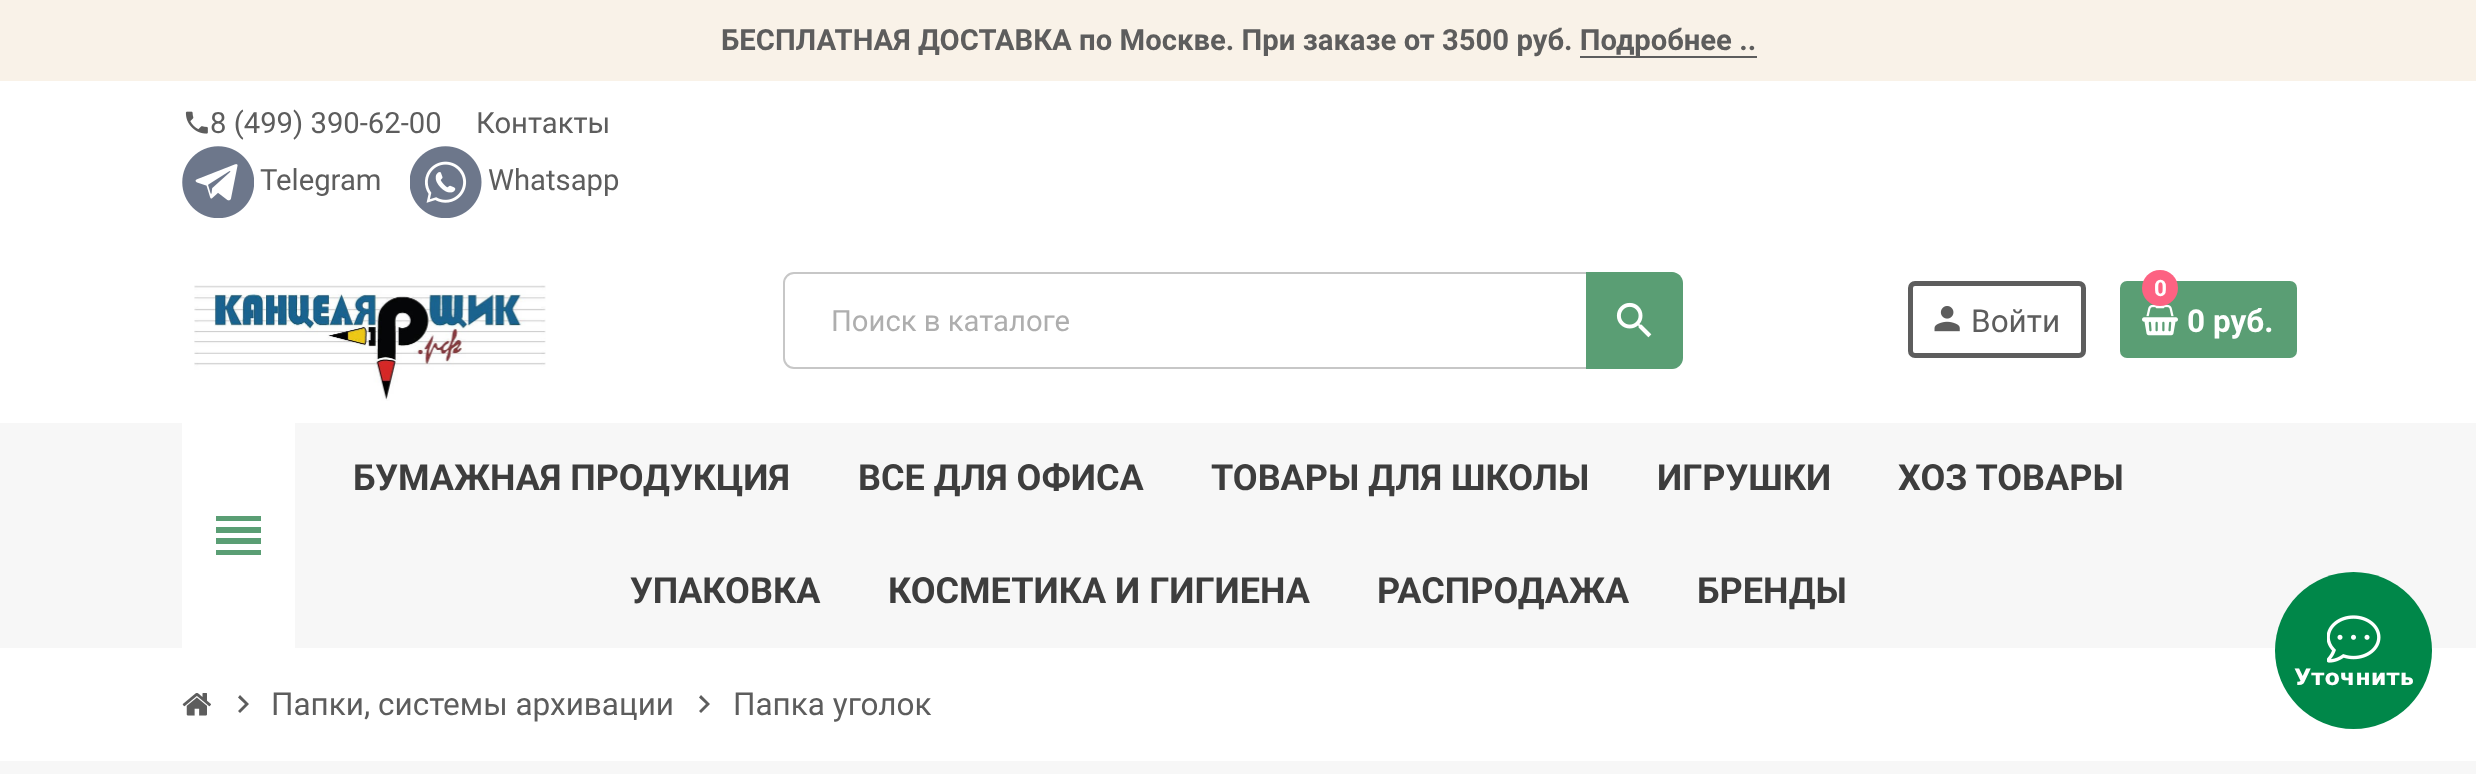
<svg xmlns="http://www.w3.org/2000/svg" xmlns:xlink="http://www.w3.org/1999/xlink" width="2476" height="774" viewBox="0 0 2476 774">
<style>
.cls-1{font:bold 29.25px Roboto;fill:#5d5d5d}
.cls-2{font:29.25px Roboto;fill:#5d5d5d}
.cls-3{font:29.25px Roboto;fill:#aeaeae}
.cls-4{font:31.5px Roboto;fill:#5d5d5d}
.cls-5{font:bold 22.5px Roboto;fill:#ffffff}
.cls-6{font:bold 31.5px Roboto;fill:#ffffff}
.cls-7{font:bold 36px 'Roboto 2';fill:#3d3d3d}
.cls-8{font:bold 22.5px DejaVu Sans;fill:#ffffff}
</style>
<rect width="100%" height="100%" fill="#ffffff"/>
<rect fill="#f9f2e8" x="0" y="0" width="2476" height="81"/>
<rect fill="#5d5d5d" x="1580" y="56" width="177" height="2"/>
<image xlink:href="image0.png" x="185" y="111" width="23" height="23"/>
<image xlink:href="image1.png" x="182" y="146" width="72" height="72"/>
<image xlink:href="image2.png" x="410" y="146" width="72" height="72"/>
<image xlink:href="image3.png" x="194" y="285" width="352" height="116"/>
<rect fill="none" stroke="#c7c7c7" stroke-width="2" x="784" y="273" width="896" height="95" rx="10"/>
<path fill="#5a9e74" d="M1586 272H1672C1678 272 1683 277 1683 283V358C1683 364 1678 369 1672 369H1586Z"/>
<image xlink:href="image4.png" x="1616" y="302" width="36" height="36"/>
<rect fill="none" stroke="#5d5d5d" stroke-width="5" x="1910.5" y="283.5" width="173" height="72" rx="4.5"/>
<image xlink:href="image5.png" x="1934" y="306" width="26" height="26"/>
<rect fill="#5a9e74" x="2120" y="281" width="177" height="77" rx="7"/>
<image xlink:href="image6.png" x="2142" y="304" width="36" height="32"/>
<circle fill="#fd6282" cx="2160" cy="288" r="18"/>
<rect fill="#f7f7f7" x="0" y="423" width="2476" height="225"/>
<rect fill="#ffffff" x="182" y="423" width="113" height="225"/>
<path fill="#5a9e74" d="M216 516H261V521H216ZM216 533V527H261V533ZM216 555V550H261V555ZM216 544V538H261V544Z"/>
<rect fill="#f7f7f7" x="0" y="761" width="2476" height="13"/>
<image xlink:href="image7.png" x="182" y="693" width="29" height="23"/>
<path fill="#5d5d5d" d="M240 695L249 704L240 713L238 711L245 704L238 697.5Z"/>
<path fill="#5d5d5d" d="M701 695L710 704L701 713L699 711L706 704L699 697.5Z"/>
<circle fill="#008749" cx="2353.5" cy="650.5" r="78.5"/>
<image xlink:href="image8.png" x="2327" y="615" width="54" height="48"/>
<text class="cls-1" x="721" y="50">БЕСПЛАТНАЯ ДОСТАВКА по Москве. При заказе от 3500 руб. Подробнее ..</text>
<text class="cls-2" x="210" y="133">8 (499) 390-62-00</text>
<text class="cls-2" x="476" y="133">Контакты</text>
<text class="cls-2" x="260" y="190">Telegram</text>
<text class="cls-2" x="488" y="190">Whatsapp</text>
<text class="cls-3" x="831" y="331">Поиск в каталоге</text>
<text class="cls-4" x="1971" y="332">Войти</text>
<text class="cls-5" x="2154" y="296">0</text>
<text class="cls-6" x="2187" y="332">0 руб.</text>
<text class="cls-7" x="353" y="490">БУМАЖНАЯ ПРОДУКЦИЯ</text>
<text class="cls-7" x="858" y="490">ВСЕ ДЛЯ ОФИСА</text>
<text class="cls-7" x="1211" y="490">ТОВАРЫ ДЛЯ ШКОЛЫ</text>
<text class="cls-7" x="1657" y="490">ИГРУШКИ</text>
<text class="cls-7" x="1898" y="490">ХОЗ ТОВАРЫ</text>
<text class="cls-7" x="630" y="603">УПАКОВКА</text>
<text class="cls-7" x="888" y="603">КОСМЕТИКА И ГИГИЕНА</text>
<text class="cls-7" x="1377" y="603">РАСПРОДАЖА</text>
<text class="cls-7" x="1697" y="603">БРЕНДЫ</text>
<text class="cls-4" x="271" y="715">Папки, системы архивации</text>
<text class="cls-4" x="733" y="715">Папка уголок</text>
<text class="cls-8" x="2294" y="685">Уточнить</text>
</svg>
